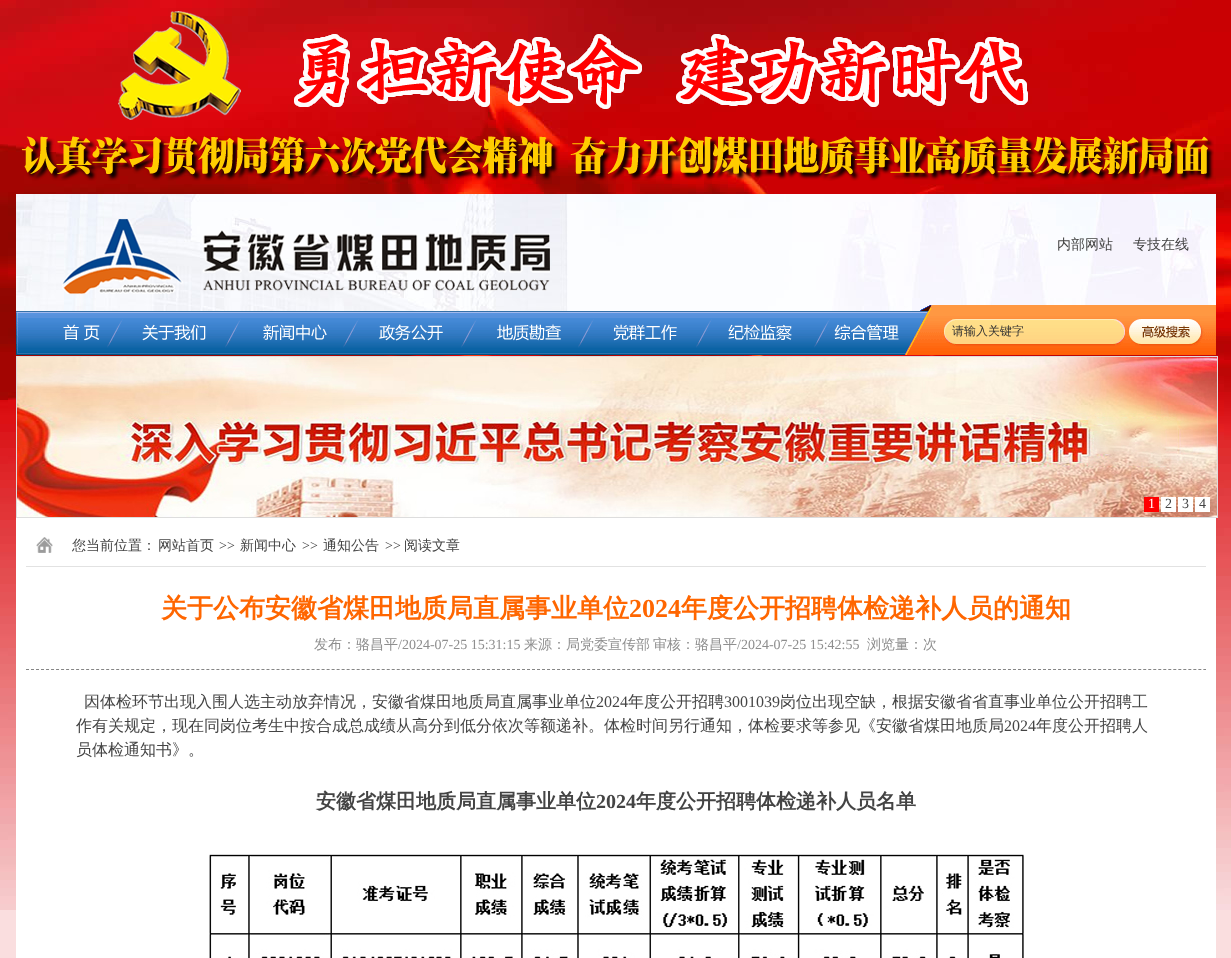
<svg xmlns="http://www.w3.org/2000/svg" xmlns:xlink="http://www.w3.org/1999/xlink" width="1231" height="958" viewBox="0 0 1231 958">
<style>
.cls-1{font:500 14px WenQuanYi Zen Hei;fill:#444444}
.cls-2{font:500 12px WenQuanYi Zen Hei;fill:#333333}
.cls-3{font:14px Liberation Serif;fill:#ffffff}
.cls-4{font:14px Liberation Serif;fill:#444444}
.cls-5{font:bold 26px WenQuanYi Zen Hei;fill:#ff6600}
.cls-6{font:bold 26px Liberation Serif;fill:#ff6600}
.cls-7{font:500 14px WenQuanYi Zen Hei;fill:#8e8e8e}
.cls-8{font:14px Liberation Serif;fill:#8e8e8e}
.cls-9{font:500 16px WenQuanYi Zen Hei;fill:#444444}
.cls-10{font:16px Liberation Serif;fill:#444444}
.cls-11{font:bold 20px WenQuanYi Zen Hei;fill:#444444}
.cls-12{font:bold 20px Liberation Serif;fill:#444444}
</style>
<defs>
<clipPath id="clip1"><rect x="26" y="587" width="1180" height="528"/></clipPath>
</defs>
<rect width="100%" height="100%" fill="#fadedf"/>
<image xlink:href="image0.png" x="0" y="0" width="1231" height="910"/>
<image xlink:href="image1.png" x="21" y="11" width="1193" height="170"/>
<image xlink:href="image2.png" x="16" y="194" width="1200" height="117"/>
<image xlink:href="image3.png" x="62" y="219" width="488" height="75"/>
<image xlink:href="image4.png" x="920" y="305" width="296" height="6"/>
<image xlink:href="image5.png" x="16" y="311" width="1200" height="44"/>
<rect fill="none" stroke="#dddddd" x="16.5" y="356.5" width="1201" height="161"/>
<image xlink:href="image6.png" x="17" y="357" width="1200" height="160"/>
<rect fill="#ff0000" x="1144" y="497" width="15" height="15"/>
<rect fill="#ffffff" x="1161" y="497" width="15" height="15"/>
<rect fill="#ffffff" x="1178" y="497" width="15" height="15"/>
<rect fill="#ffffff" x="1195" y="497" width="15" height="15"/>
<rect fill="#ffffff" x="16" y="518" width="1200" height="440"/>
<rect fill="#e2e2e2" x="26" y="566" width="1180" height="1"/>
<image xlink:href="image7.png" x="36" y="537" width="17" height="16"/>
<g clip-path="url(#clip1)">
<path fill="none" stroke="#858585" stroke-dasharray="3 2.01" d="M26 669.5H1226"/>
</g>
<image xlink:href="image8.png" x="209" y="854" width="815" height="104"/>
<text class="cls-1" x="1057" y="249">内部网站</text>
<text class="cls-1" x="1133" y="249">专技在线</text>
<text class="cls-2" x="952" y="335">请输入关键字</text>
<text class="cls-3" x="1148" y="508">1</text>
<text class="cls-4" x="1165" y="508">2</text>
<text class="cls-4" x="1182" y="508">3</text>
<text class="cls-4" x="1199" y="508">4</text>
<text class="cls-1" x="72" y="550">您当前位置：</text>
<text class="cls-1" x="158" y="550">网站首页</text>
<text class="cls-4" x="219" y="550">&gt;&gt;</text>
<text class="cls-1" x="240" y="550">新闻中心</text>
<text class="cls-4" x="302" y="550">&gt;&gt;</text>
<text class="cls-1" x="323" y="550">通知公告</text>
<text class="cls-4" x="385" y="550">&gt;&gt;</text>
<text class="cls-1" x="404" y="550">阅读文章</text>
<text class="cls-5" x="161" y="617">关于公布安徽省煤田地质局直属事业单位</text>
<text class="cls-6" x="629" y="617">2024</text>
<text class="cls-5" x="681" y="617">年度公开招聘体检递补人员的通知</text>
<text class="cls-7" x="314" y="649">发布：骆昌平</text>
<text class="cls-8" x="398" y="649">/2024-07-25 15:31:15</text>
<text class="cls-7" x="524" y="649">来源：局党委宣传部</text>
<text class="cls-7" x="653" y="649">审核：骆昌平</text>
<text class="cls-8" x="737" y="649">/2024-07-25 15:42:55</text>
<text class="cls-7" x="867" y="649">浏览量：次</text>
<text class="cls-9" x="84" y="707">因体检环节出现入围人选主动放弃情况，安徽省煤田地质局直属事业单位</text>
<text class="cls-10" x="596" y="707">2024</text>
<text class="cls-9" x="628" y="707">年度公开招聘</text>
<text class="cls-10" x="724" y="707">3001039</text>
<text class="cls-9" x="780" y="707">岗位出现空缺，根据安徽省省直事业单位公开招聘工</text>
<text class="cls-9" x="76" y="731">作有关规定，现在同岗位考生中按合成总成绩从高分到低分依次等额递补。体检时间另行通知，体检要求等参见《安徽省煤田地质局</text>
<text class="cls-10" x="1004" y="731">2024</text>
<text class="cls-9" x="1036" y="731">年度公开招聘人</text>
<text class="cls-9" x="76" y="755">员体检通知书》。</text>
<text class="cls-11" x="316" y="808">安徽省煤田地质局直属事业单位</text>
<text class="cls-12" x="596" y="808">2024</text>
<text class="cls-11" x="636" y="808">年度公开招聘体检递补人员名单</text>
</svg>
